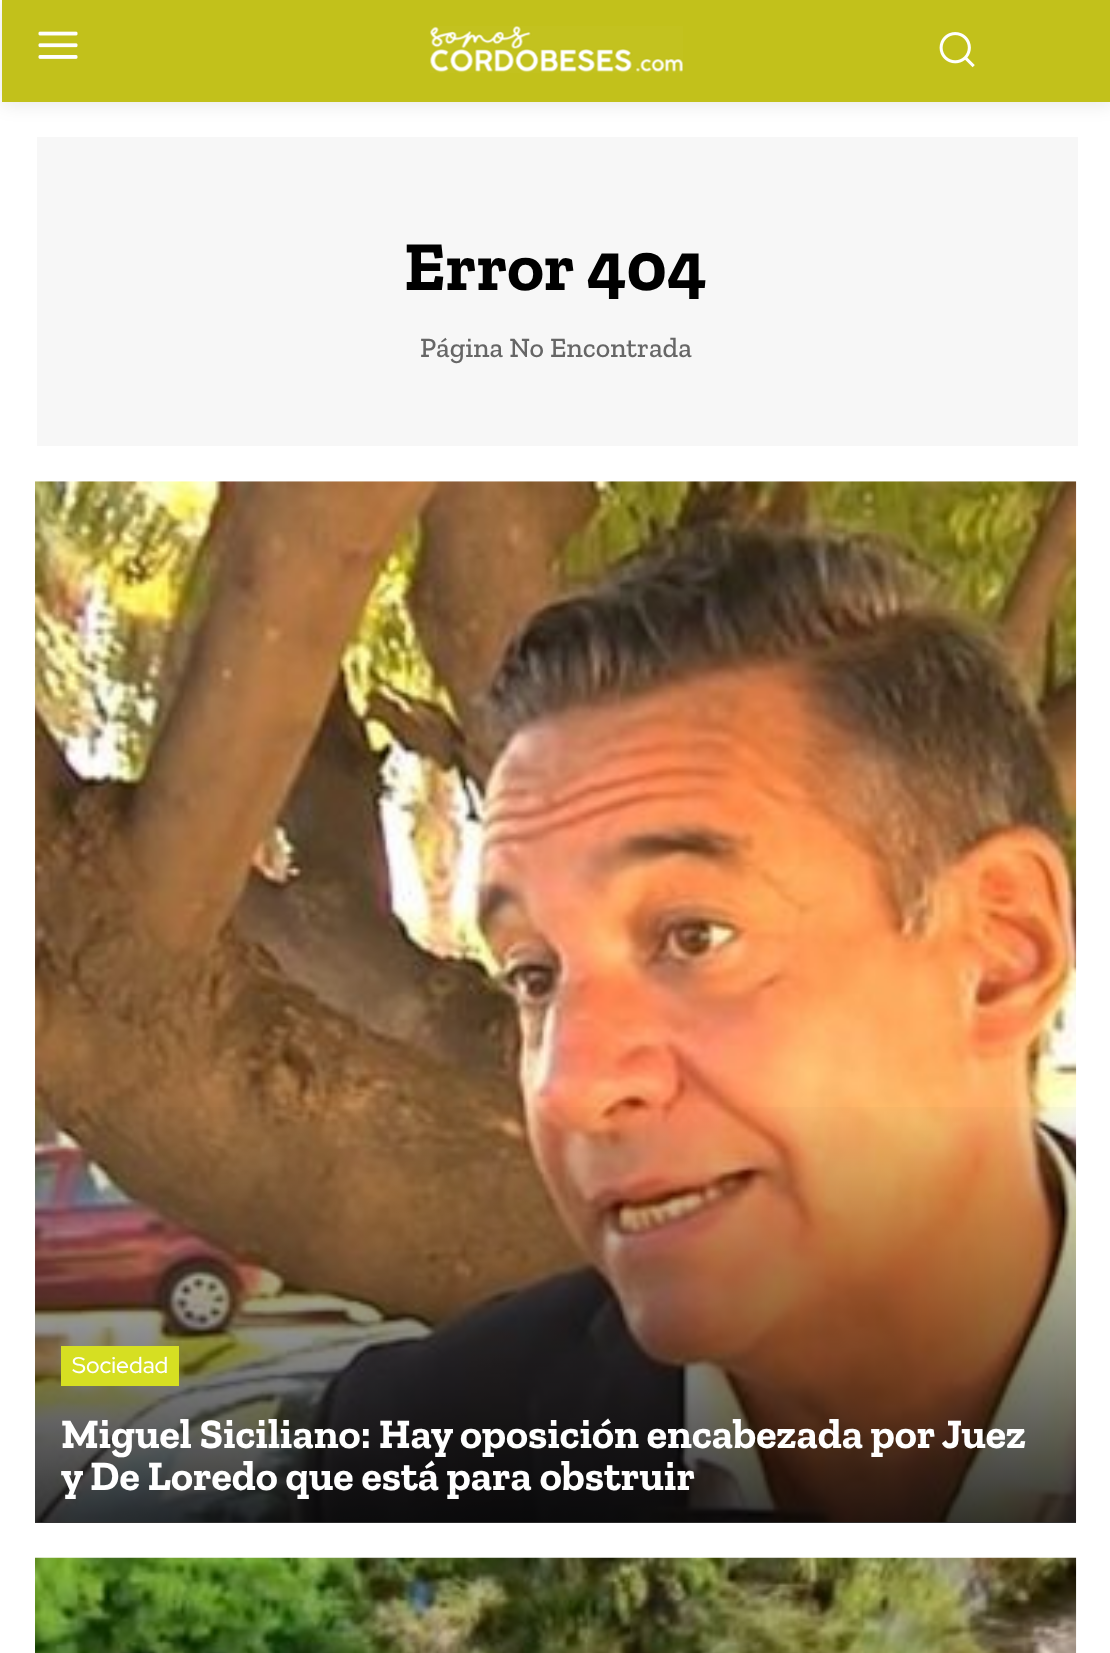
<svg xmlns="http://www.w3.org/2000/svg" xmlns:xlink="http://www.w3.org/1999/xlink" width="1110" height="1653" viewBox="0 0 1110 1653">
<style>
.cls-1{font:bold 70px Zilla Slab;fill:#000000}
.cls-2{font:500 28px Zilla Slab;fill:#666666}
.cls-3{font:500 22.75px Red Hat Display;fill:#ffffff}
.cls-4{font:bold 42px Zilla Slab;fill:#ffffff}
</style>
<defs>
<clipPath id="clip1"><path d="M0 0H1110V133H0ZM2 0H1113V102H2Z" clip-rule="evenodd"/></clipPath>
<linearGradient id="g1" gradientUnits="userSpaceOnUse" x1="556" y1="1523" x2="556" y2="481"><stop offset="0" stop-color="#000000" stop-opacity="0.8"/><stop offset="0.41" stop-color="#000000" stop-opacity="0"/><stop offset="1" stop-color="#000000" stop-opacity="0"/></linearGradient>
</defs>
<rect width="100%" height="100%" fill="#ffffff"/>
<rect fill="#c2c11b" x="2" y="0" width="1108" height="102"/>
<image xlink:href="image0.png" x="38" y="31" width="40" height="28"/>
<image xlink:href="image1.png" x="430" y="26" width="253" height="47"/>
<image xlink:href="image2.png" x="939" y="32" width="36" height="36"/>
<g clip-path="url(#clip1)">
<rect fill="#000000" fill-opacity="0.09" filter="blur(9px)" x="2" y="4" width="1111" height="101"/>
</g>
<rect fill="#f7f7f7" x="37" y="137" width="1041" height="309"/>
<image xlink:href="image3.png" x="35" y="481" width="1042" height="1042"/>
<rect fill="url(#g1)" x="35" y="1107" width="1041" height="416"/>
<rect fill="#d6df22" x="61" y="1346" width="118" height="40"/>
<image xlink:href="image4.png" x="35" y="1557" width="1042" height="96"/>
<text class="cls-1" x="404" y="290">Error 404</text>
<text class="cls-2" x="420" y="357">Página No Encontrada</text>
<text class="cls-3" x="72" y="1373">Sociedad</text>
<text class="cls-4"><tspan x="61" y="1448">Miguel Siciliano: Hay oposición encabezada por Juez</tspan><tspan x="61" y="1490">y De Loredo que está para obstruir</tspan></text>
</svg>
